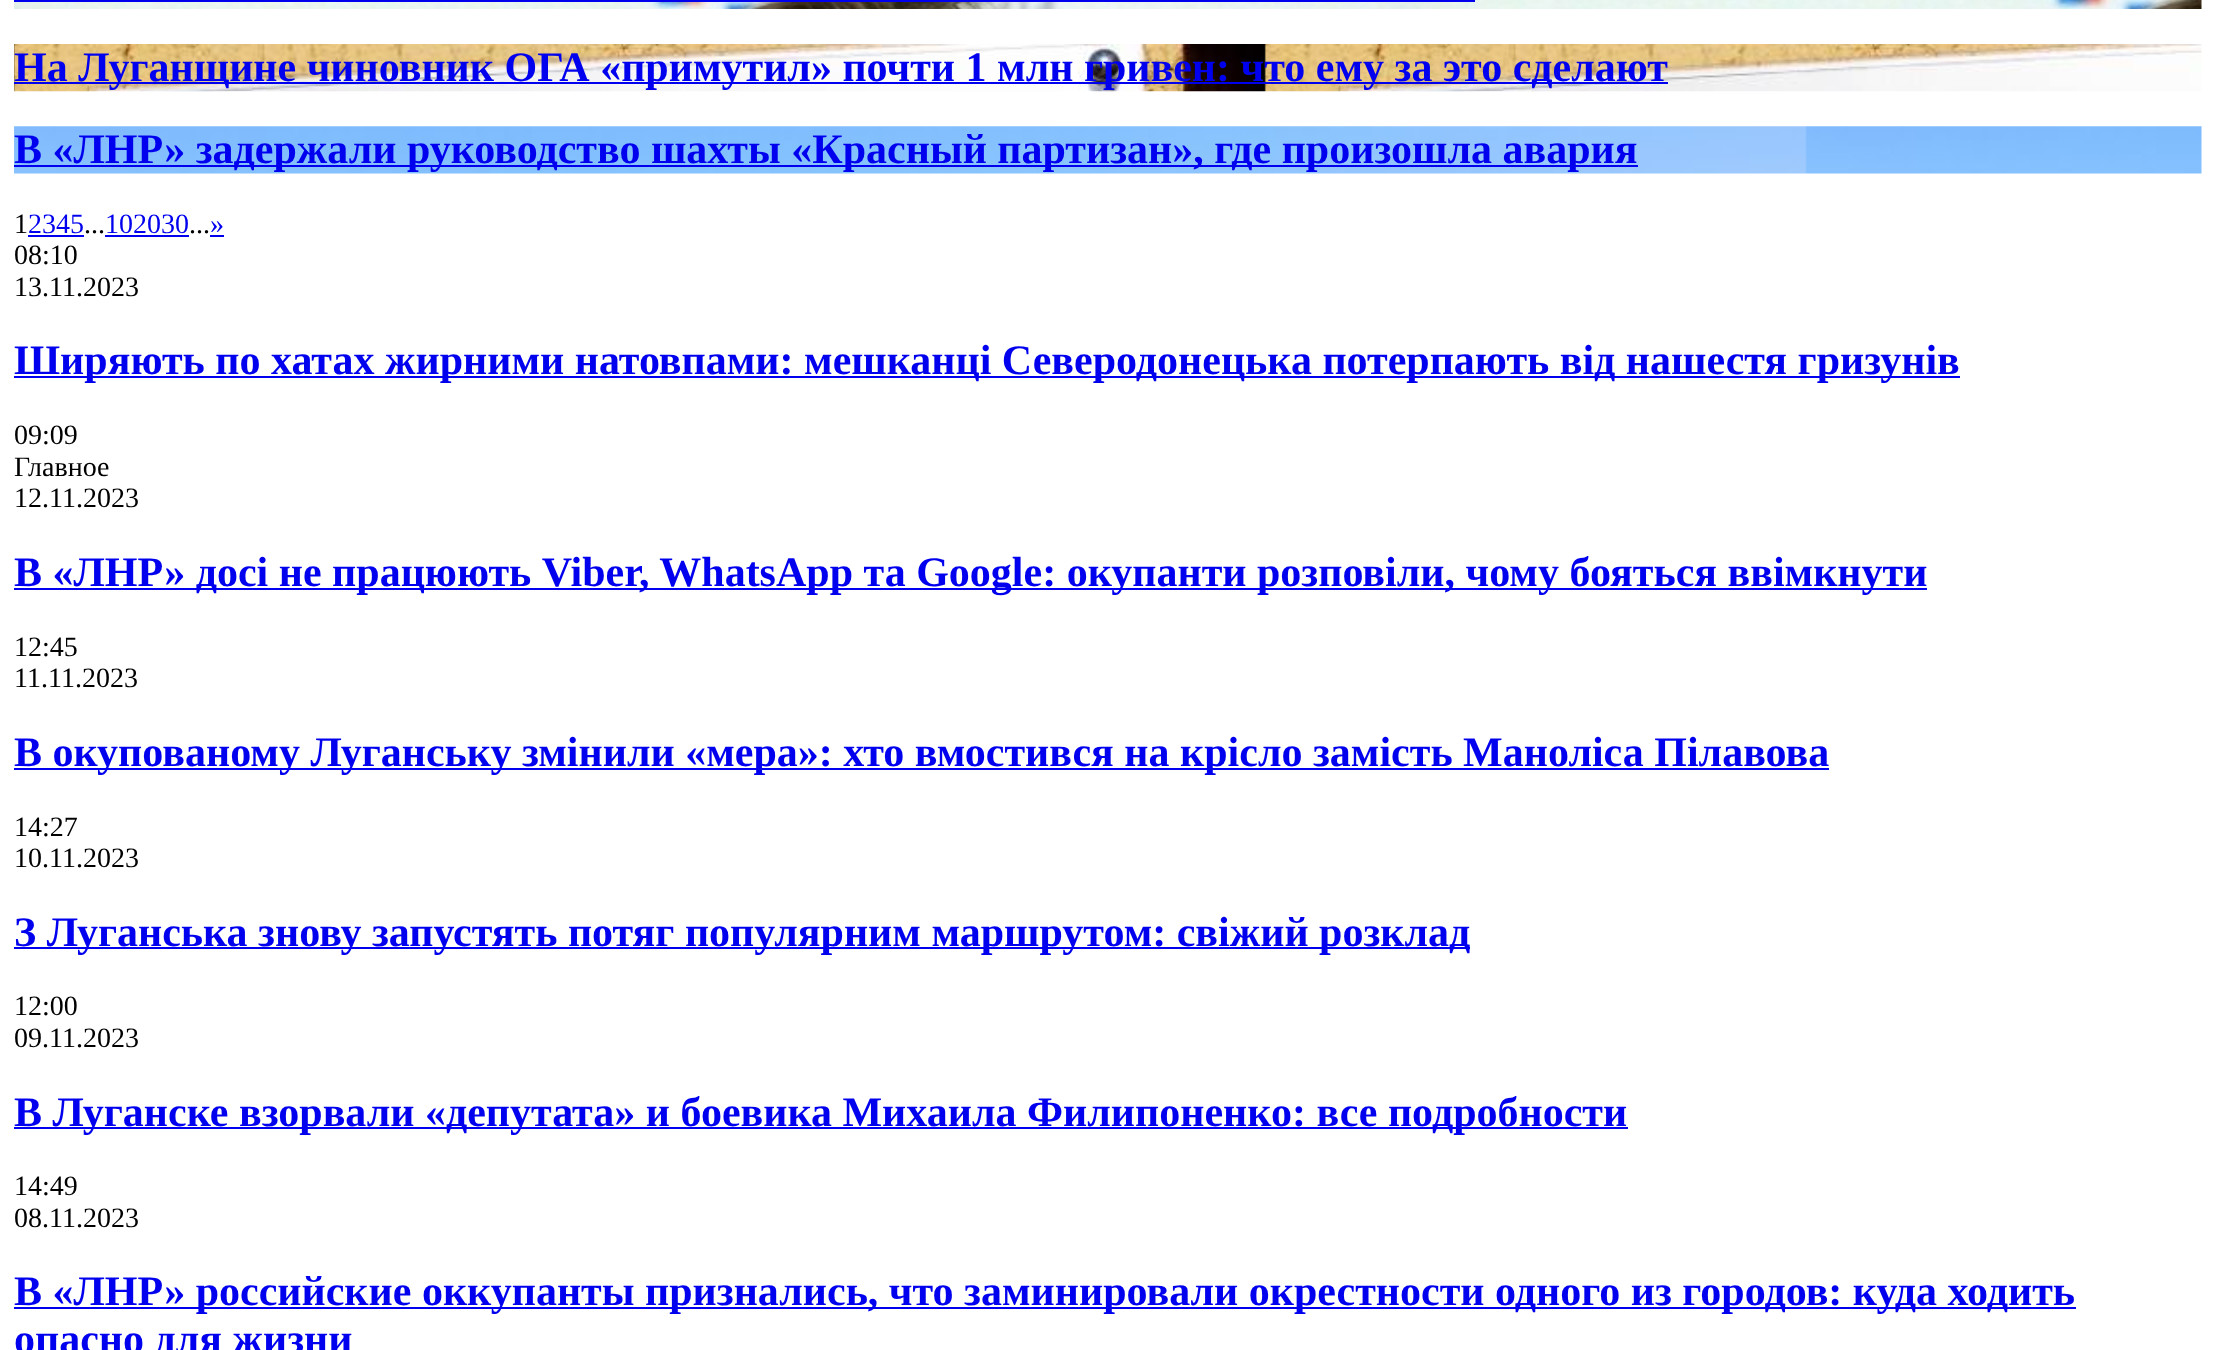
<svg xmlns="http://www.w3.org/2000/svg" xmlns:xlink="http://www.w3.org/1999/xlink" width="2214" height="1350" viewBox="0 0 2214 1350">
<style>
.cls-1{font:bold 42px Liberation Serif;fill:#0000ee}
.cls-2{font:28px Liberation Serif;fill:#000000}
.cls-3{font:28px Liberation Serif;fill:#0000ee}
</style>
<rect width="100%" height="100%" fill="#ffffff"/>
<image xlink:href="image0.png" x="14" y="0" width="2188" height="9"/>
<rect fill="#0000ee" x="14" y="0" width="1461" height="2"/>
<image xlink:href="image1.png" x="14" y="44" width="2188" height="48"/>
<rect fill="#0000ee" x="14" y="82" width="1654" height="2"/>
<image xlink:href="image2.png" x="14" y="126" width="2188" height="48"/>
<rect fill="#0000ee" x="14" y="165" width="1624" height="2"/>
<rect fill="#0000ee" x="28" y="235" width="56" height="2"/>
<rect fill="#0000ee" x="105" y="235" width="84" height="2"/>
<rect fill="#0000ee" x="210" y="235" width="14" height="2"/>
<rect fill="#0000ee" x="14" y="376" width="1946" height="2"/>
<rect fill="#0000ee" x="14" y="588" width="1913" height="2"/>
<rect fill="#0000ee" x="14" y="768" width="1815" height="2"/>
<rect fill="#0000ee" x="14" y="947" width="1456" height="2"/>
<rect fill="#0000ee" x="14" y="1127" width="1614" height="2"/>
<rect fill="#0000ee" x="14" y="1307" width="2062" height="2"/>
<text class="cls-1"><tspan x="14" y="81">На Луганщине чиновник ОГА «примутил» почти 1 млн гривен: что ему за это сделают</tspan><tspan x="14" y="163">В «ЛНР» задержали руководство шахты «Красный партизан», где произошла авария</tspan></text>
<text class="cls-2" x="14" y="233">1</text>
<text class="cls-3" x="28" y="233">2345</text>
<text class="cls-2" x="84" y="233">...</text>
<text class="cls-3" x="105" y="233">102030</text>
<text class="cls-2" x="189" y="233">...</text>
<text class="cls-3" x="210" y="233">»</text>
<text class="cls-2"><tspan x="14" y="264">08:10</tspan><tspan x="14" y="296">13.11.2023</tspan></text>
<text class="cls-1" x="14" y="374">Ширяють по хатах жирними натовпами: мешканці Северодонецька потерпають від нашестя гризунів</text>
<text class="cls-2"><tspan x="14" y="444">09:09</tspan><tspan x="14" y="476">Главное</tspan><tspan x="14" y="507">12.11.2023</tspan></text>
<text class="cls-1" x="14" y="586">В «ЛНР» досі не працюють Viber, WhatsApp та Google: окупанти розповіли, чому бояться ввімкнути</text>
<text class="cls-2"><tspan x="14" y="656">12:45</tspan><tspan x="14" y="687">11.11.2023</tspan></text>
<text class="cls-1" x="14" y="766">В окупованому Луганську змінили «мера»: хто вмостився на крісло замість Маноліса Пілавова</text>
<text class="cls-2"><tspan x="14" y="836">14:27</tspan><tspan x="14" y="867">10.11.2023</tspan></text>
<text class="cls-1" x="14" y="946">З Луганська знову запустять потяг популярним маршрутом: свіжий розклад</text>
<text class="cls-2"><tspan x="14" y="1015">12:00</tspan><tspan x="14" y="1047">09.11.2023</tspan></text>
<text class="cls-1" x="14" y="1126">В Луганске взорвали «депутата» и боевика Михаила Филипоненко: все подробности</text>
<text class="cls-2"><tspan x="14" y="1195">14:49</tspan><tspan x="14" y="1227">08.11.2023</tspan></text>
<text class="cls-1"><tspan x="14" y="1305">В «ЛНР» российские оккупанты признались, что заминировали окрестности одного из городов: куда ходить</tspan><tspan x="14" y="1353">опасно для жизни</tspan></text>
</svg>
